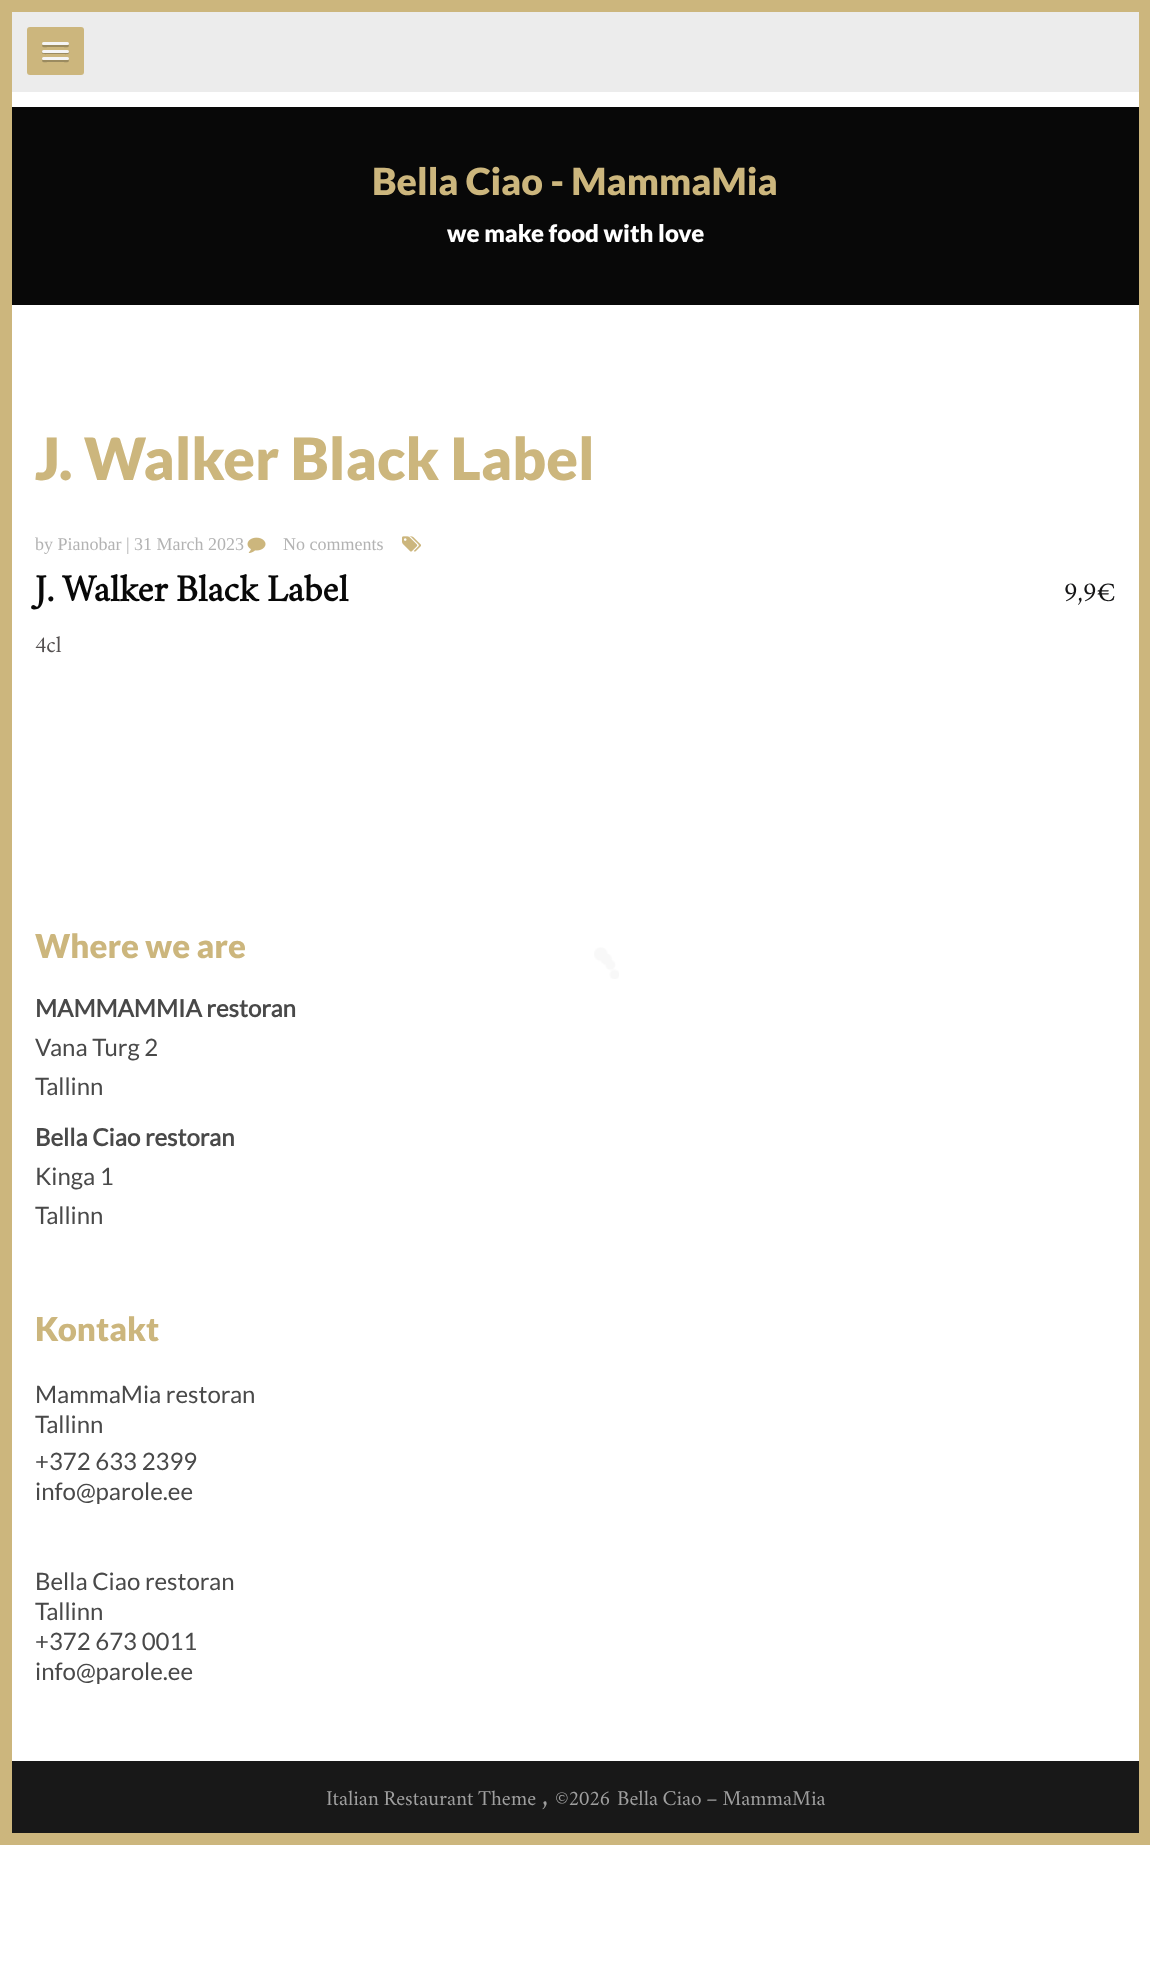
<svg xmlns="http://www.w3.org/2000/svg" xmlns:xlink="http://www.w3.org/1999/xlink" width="1150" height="1963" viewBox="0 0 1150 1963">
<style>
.cls-1{font:900 37.5px Lato;fill:#ccb67d}
.cls-2{font:900 24px Lato;fill:#ffffff}
.cls-3{font:900 58.5px Lato;fill:#ccb67d}
.cls-4{font:18px Liberation Serif;fill:#b3b3b3}
.cls-5{font:bold 33px Crimson Text;fill:#080808}
.cls-6{font:24px Crimson Text;fill:#141415}
.cls-7{font:20px Crimson Text;fill:#545050}
.cls-8{font:900 33px Lato;fill:#ccb67d}
.cls-9{font:bold 24px Lato;fill:#494949}
.cls-10{font:24px Lato;fill:#494949}
.cls-11{font:18.4px Crimson Text;fill:#9f9f9f}
.cls-12{font:27px Crimson Text;fill:#9f9f9f}
</style>
<rect width="100%" height="100%" fill="#ffffff"/>
<rect fill="none" stroke="#ccb67d" stroke-width="12" x="6" y="6" width="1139" height="1833"/>
<rect fill="#ececec" x="12" y="12" width="1127" height="80"/>
<rect fill="#ccb67d" x="27" y="27" width="57" height="48" rx="3"/>
<path fill="#9b8b60" d="M42.5 44.5L42 46C42.5 48 47 47 47.5 47H63.5C64 47 68.5 48 69 46L68.5 44.5L67.5 45H43.5Z"/>
<rect fill="#f5f5f5" x="42" y="42" width="27" height="3" rx="1.5"/>
<path fill="#9b8b60" d="M42 51.5C40.5 55 47.5 54 47.5 54H63.5C63.5 54 70.5 55 69 51.5C68.5 52 68 52.5 67.5 52.5H43.5C43 52.5 42.5 52 42 51.5Z"/>
<rect fill="#f5f5f5" x="42" y="50" width="27" height="3" rx="1.5"/>
<path fill="#9b8b60" d="M42.5 59.5L42 61C42.5 63 47 62 47.5 62H63.5C64 62 68.5 63 69 61L68.5 59.5L67.5 60H43.5Z"/>
<rect fill="#f5f5f5" x="42" y="57" width="27" height="3" rx="1.5"/>
<rect fill="#080808" x="12" y="107" width="1127" height="198"/>
<image xlink:href="image0.png" x="247" y="537" width="19" height="16"/>
<image xlink:href="image1.png" x="402" y="536" width="19" height="16"/>
<image xlink:href="image2.png" x="594" y="947" width="25" height="32"/>
<rect fill="#181818" x="12" y="1761" width="1127" height="72"/>
<text class="cls-1" x="372" y="195">Bella Ciao - MammaMia</text>
<text class="cls-2" x="447" y="242">we make food with love</text>
<text class="cls-3" x="35" y="480">J. Walker Black Label</text>
<text class="cls-4" x="35" y="550">by Pianobar | 31 March 2023</text>
<text class="cls-4" x="283" y="550">No comments</text>
<text class="cls-5" x="35" y="601">J. Walker Black Label</text>
<text class="cls-6" x="1064" y="601">9,9€</text>
<text class="cls-7" x="35" y="652">4cl</text>
<text class="cls-8" x="35" y="958">Where we are</text>
<text class="cls-9" x="35" y="1017">MAMMAMMIA restoran</text>
<text class="cls-10"><tspan x="35" y="1056">Vana Turg 2</tspan><tspan x="35" y="1095">Tallinn</tspan></text>
<text class="cls-9" x="35" y="1146">Bella Ciao restoran</text>
<text class="cls-10"><tspan x="35" y="1185">Kinga 1</tspan><tspan x="35" y="1224">Tallinn</tspan></text>
<text class="cls-8" x="35" y="1341">Kontakt</text>
<text class="cls-10"><tspan x="35" y="1403">MammaMia restoran</tspan><tspan x="35" y="1433">Tallinn</tspan><tspan x="35" y="1470">+372 633 2399</tspan><tspan x="35" y="1500">info@parole.ee</tspan></text>
<text class="cls-10"><tspan x="35" y="1590">Bella Ciao restoran</tspan><tspan x="35" y="1620">Tallinn</tspan><tspan x="35" y="1650">+372 673 0011</tspan><tspan x="35" y="1680">info@parole.ee</tspan></text>
<text class="cls-11" x="326" y="1805">Italian Restaurant Theme</text>
<text class="cls-12" x="542" y="1805">,</text>
<text class="cls-11" x="555" y="1805">©2026</text>
<text class="cls-11" x="617" y="1805">Bella Ciao – MammaMia</text>
</svg>
